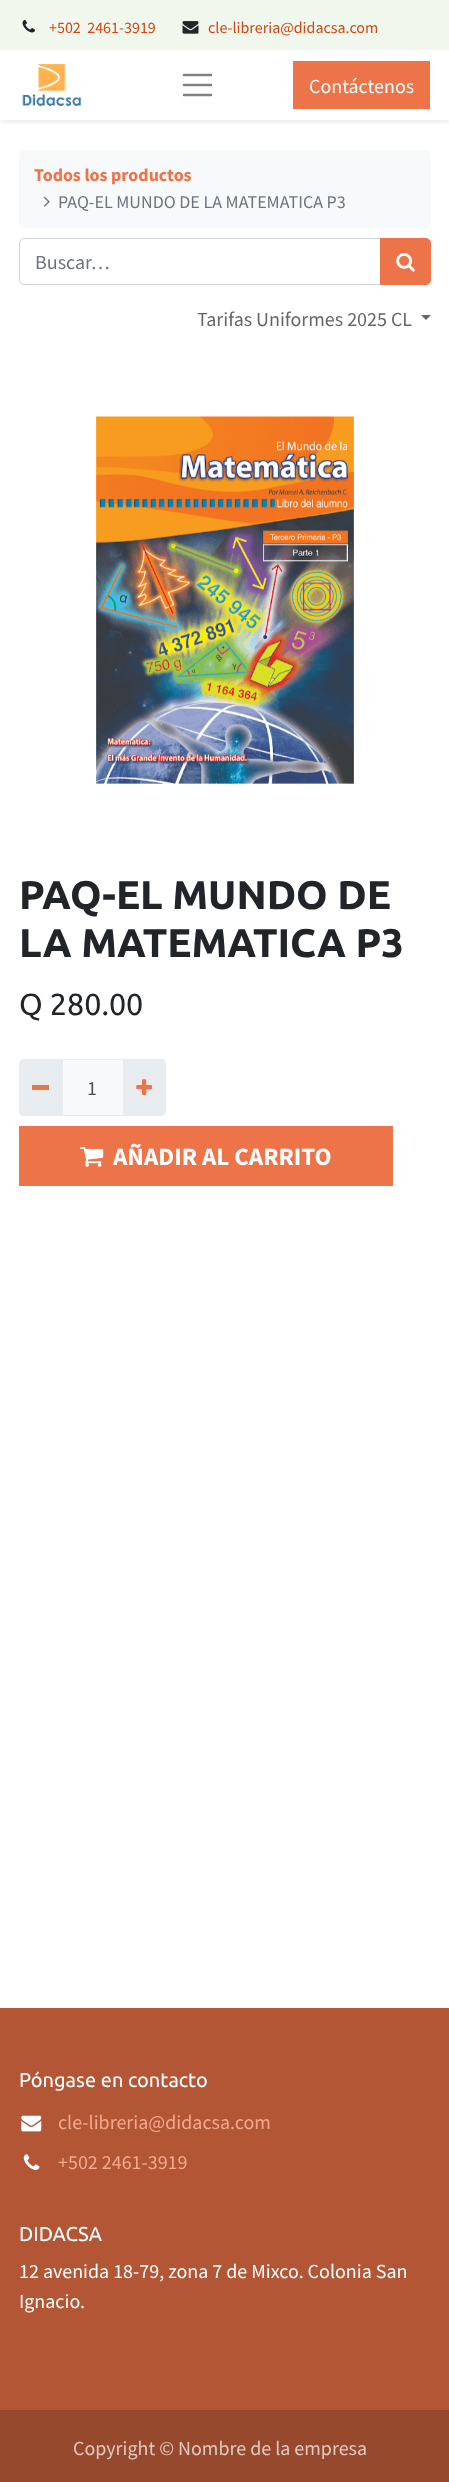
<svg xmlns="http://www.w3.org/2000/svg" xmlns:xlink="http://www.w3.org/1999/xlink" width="449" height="2482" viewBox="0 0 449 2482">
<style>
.cls-1{font:16px Source Sans Pro;fill:#d44715}
.cls-2{font:20px Source Sans Pro;fill:#ffffff}
.cls-3{font:bold 18px Source Sans Pro;fill:#ed7348}
.cls-4{font:18px Source Sans Pro;fill:#6c757d}
.cls-5{font:20px Source Sans Pro;fill:#6c757d}
.cls-6{font:20px Source Sans Pro;fill:#646669}
.cls-7{font:bold 40px Ubuntu;fill:#212529}
.cls-8{font:30.5px Ubuntu;fill:#212529}
.cls-9{font:20px Source Sans Pro;fill:#495057}
.cls-10{font:bold 25px Source Sans Pro;fill:#ffffff}
.cls-11{font:20px Ubuntu;fill:#ffffff}
.cls-12{font:20px Source Sans Pro;fill:#f4a88e}
.cls-13{font:20px Source Sans Pro;fill:#e0c8c0}
</style>
<defs>
<clipPath id="clip1"><rect x="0" y="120" width="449" height="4"/></clipPath>
</defs>
<rect width="100%" height="100%" fill="#ffffff"/>
<rect fill="#f0f7ed" x="0" y="0" width="449" height="50"/>
<image xlink:href="image0.png" x="22" y="19" width="13" height="14"/>
<image xlink:href="image1.png" x="182" y="21" width="17" height="13"/>
<g clip-path="url(#clip1)">
<rect fill="#000000" fill-opacity="0.07" filter="blur(2.5px)" x="0" y="53" width="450" height="70"/>
</g>
<image xlink:href="image2.png" x="22" y="64" width="60" height="42"/>
<path fill="none" stroke="#808080" stroke-width="2.5" stroke-linecap="round" d="M184 75H211M184 85H211M184 95H211"/>
<rect fill="#ed7348" x="293" y="61" width="137" height="48"/>
<rect fill="#f8f9fa" x="19" y="150" width="412" height="78" rx="5"/>
<image xlink:href="image3.png" x="43" y="196" width="7" height="11"/>
<path fill="none" stroke="#ced4da" d="M24 238.5H380.5V284.5H24C21.5 284.5 19.5 282.5 19.5 280V243C19.5 240.5 21.5 238.5 24 238.5Z"/>
<path fill="#ed7348" stroke="#ed7348" d="M380.5 238.5H426C428.5 238.5 430.5 240.5 430.5 243V280C430.5 282.5 428.5 284.5 426 284.5H380.5Z"/>
<image xlink:href="image4.png" x="396" y="253" width="19" height="19"/>
<path fill="#646669" d="M421 315H431L426 320Z"/>
<image xlink:href="image5.png" x="96" y="416" width="258" height="368"/>
<rect fill="#f8f9fa" x="63" y="1060" width="60" height="55"/>
<rect fill="none" stroke="#e9ecef" x="61.5" y="1059.5" width="62" height="56"/>
<path fill="#e9ecef" d="M24 1059H63V1116H24C21 1116 19 1114 19 1111V1064C19 1061 21 1059 24 1059Z"/>
<rect fill="#ed7348" x="32" y="1085" width="17" height="5"/>
<path fill="#e9ecef" d="M123 1059H161C164 1059 166 1061 166 1064V1111C166 1114 164 1116 161 1116H123Z"/>
<image xlink:href="image6.png" x="136" y="1079" width="16" height="16"/>
<rect fill="#ed7348" x="19" y="1126" width="374" height="60"/>
<image xlink:href="image7.png" x="80" y="1147" width="24" height="20"/>
<rect fill="#b25636" x="0" y="2008" width="449" height="402"/>
<image xlink:href="image8.png" x="21" y="2115" width="21" height="17"/>
<image xlink:href="image9.png" x="23" y="2154" width="17" height="16"/>
<rect fill="#97492e" x="0" y="2410" width="449" height="72"/>
<text class="cls-1" xml:space="preserve" x="49" y="33">+502  2461-3919</text>
<text class="cls-1" x="208" y="33">cle-libreria@didacsa.com</text>
<text class="cls-2" x="309" y="93">Contáctenos</text>
<text class="cls-3" x="34" y="181">Todos los productos</text>
<text class="cls-4" x="58" y="208">PAQ-EL MUNDO DE LA MATEMATICA P3</text>
<text class="cls-5" x="35" y="269">Buscar…</text>
<text class="cls-6" x="197" y="326">Tarifas Uniformes 2025 CL</text>
<text class="cls-7"><tspan x="19" y="909">PAQ-EL MUNDO DE</tspan><tspan x="19" y="957">LA MATEMATICA P3</tspan></text>
<text class="cls-8" x="19" y="1015">Q 280.00</text>
<text class="cls-9" x="87" y="1095">1</text>
<text class="cls-10" x="113" y="1165">AÑADIR AL CARRITO</text>
<text class="cls-11" x="19" y="2087">Póngase en contacto</text>
<text class="cls-12" x="58" y="2129">cle-libreria@didacsa.com</text>
<text class="cls-12" x="58" y="2169">+502 2461-3919</text>
<text class="cls-11" x="19" y="2241">DIDACSA</text>
<text class="cls-2"><tspan x="19" y="2278">12 avenida 18-79, zona 7 de Mixco. Colonia San</tspan><tspan x="19" y="2308">Ignacio.</tspan></text>
<text class="cls-13" x="73" y="2455">Copyright © Nombre de la empresa</text>
</svg>
